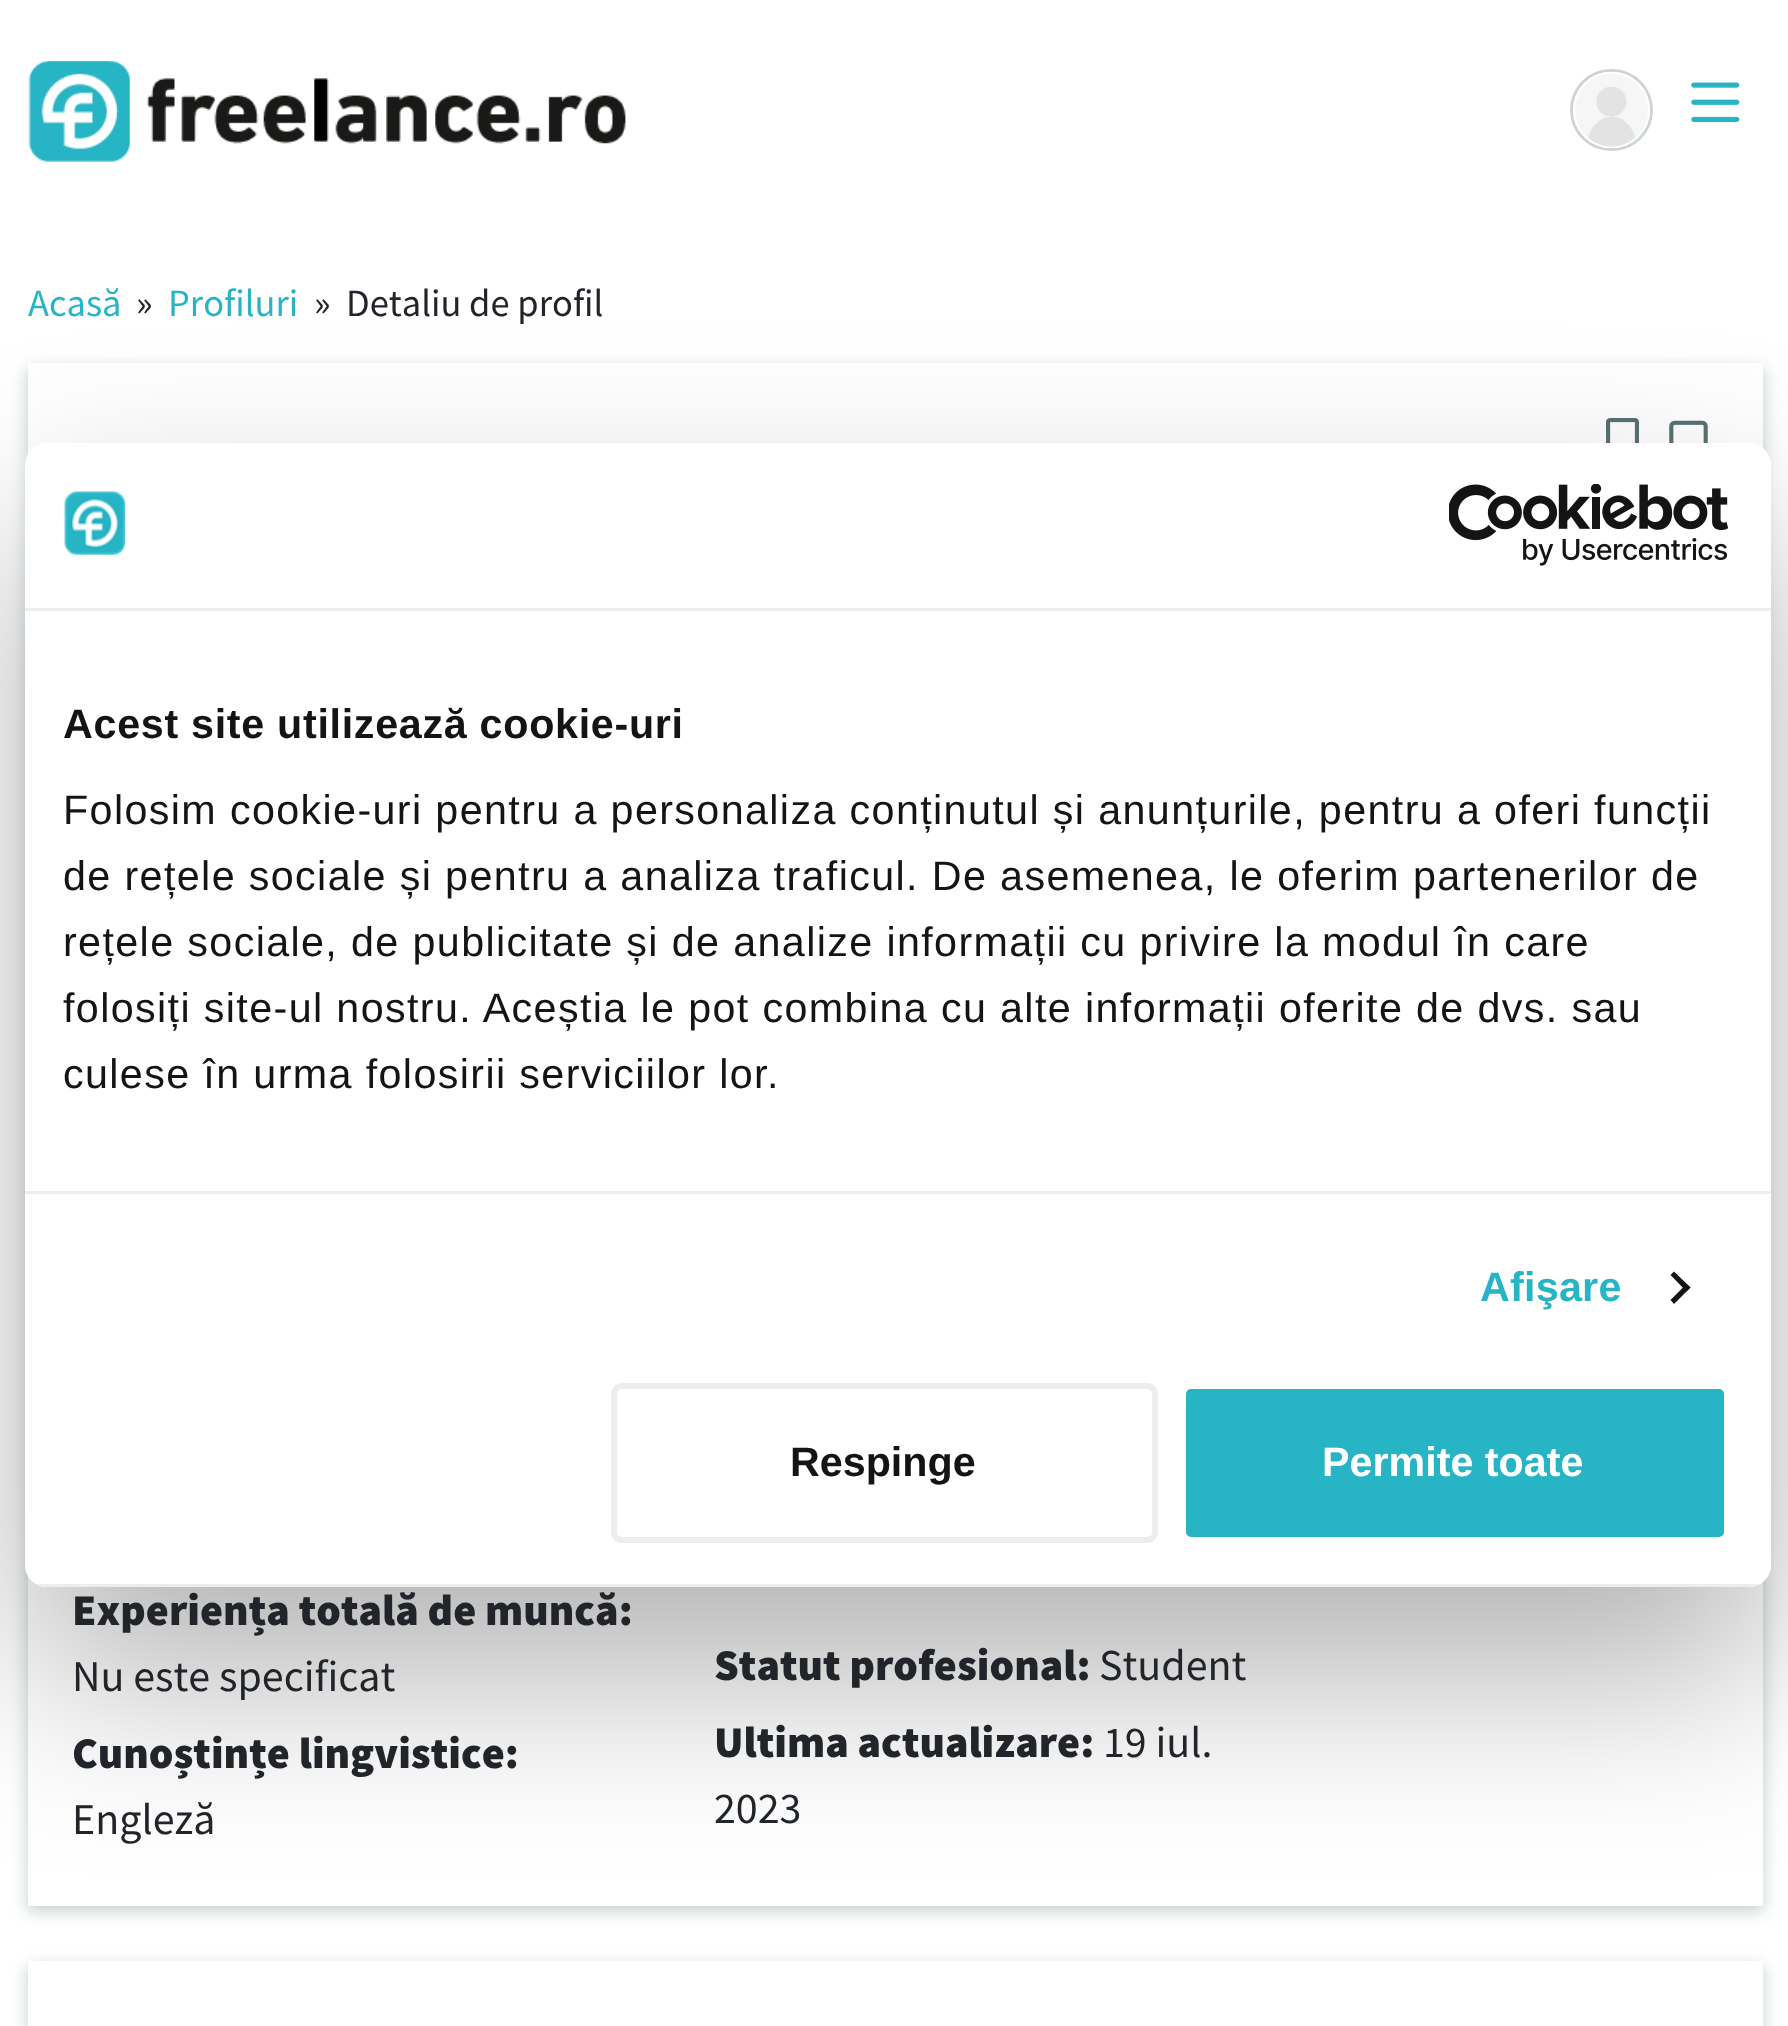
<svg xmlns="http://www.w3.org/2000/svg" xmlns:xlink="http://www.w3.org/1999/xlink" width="1788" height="2026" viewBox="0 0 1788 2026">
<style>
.cls-1{font:38.5px Source Sans Pro;fill:#27b4c4}
.cls-2{font:38.5px Source Sans Pro;fill:#212529}
.cls-3{font:900 44px Source Sans Pro;fill:#212529}
.cls-4{font:44px Source Sans Pro;fill:#212529}
.cls-5{font:bold 41.25px Liberation Sans;letter-spacing:0.7px;fill:#141414}
.cls-6{font:41.25px Liberation Sans;letter-spacing:1.38px;fill:#141414}
.cls-7{font:bold 41.25px Liberation Sans;letter-spacing:0.25px;fill:#27b4c4}
.cls-8{font:bold 41.25px Liberation Sans;fill:#141414}
.cls-9{font:bold 41.25px Liberation Sans;fill:#ffffff}
</style>
<defs>
<clipPath id="clip1"><path d="M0 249H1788V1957H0ZM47 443H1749C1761 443 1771 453 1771 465V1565C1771 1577 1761 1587 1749 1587H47C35 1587 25 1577 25 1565V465C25 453 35 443 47 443Z" clip-rule="evenodd"/></clipPath>
<clipPath id="clip2"><rect x="25" y="443" width="1746" height="1144" rx="22"/></clipPath>
</defs>
<rect width="100%" height="100%" fill="#ffffff"/>
<image xlink:href="image0.png" x="28" y="60" width="598" height="102"/>
<rect fill="none" stroke="#cdd4d5" stroke-width="3" x="1571.5" y="70.5" width="80" height="79" rx="39.5"/>
<image xlink:href="image1.png" x="1573" y="71" width="77" height="78"/>
<image xlink:href="image2.png" x="1691" y="82" width="49" height="40"/>
<rect fill="#5a7273" fill-opacity="0.35" filter="blur(8px)" x="28" y="369" width="1735" height="1542"/>
<rect fill="#ffffff" x="28" y="363" width="1735" height="1543"/>
<image xlink:href="image3.png" x="1606" y="418" width="33" height="25"/>
<image xlink:href="image4.png" x="1669" y="420" width="39" height="23"/>
<rect fill="#5a7273" fill-opacity="0.35" filter="blur(8px)" x="28" y="1966" width="1735" height="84"/>
<rect fill="#ffffff" x="28" y="1961" width="1735" height="65"/>
<g clip-path="url(#clip1)">
<rect fill="#000000" fill-opacity="0.3" filter="blur(93.5px)" x="25" y="531" width="1746" height="1144" rx="22"/>
</g>
<rect fill="#ffffff" x="25" y="443" width="1746" height="1144" rx="22"/>
<rect fill="#ededed" x="25" y="608" width="1746" height="3"/>
<image xlink:href="image5.png" x="64" y="491" width="62" height="64"/>
<image xlink:href="image6.png" x="1449" y="484" width="280" height="82"/>
<rect fill="#ededed" x="25" y="1191" width="1746" height="3"/>
<path fill="#141414" d="M1674 1271.5L1690.5 1287.5L1686.5 1291.5L1670.5 1275Z"/>
<path fill="#141414" d="M1686.5 1284L1690.5 1287.5L1674 1304L1670.5 1300Z"/>
<g clip-path="url(#clip2)">
<rect fill="#ededed" x="36" y="1584" width="1724" height="3"/>
</g>
<rect fill="none" stroke="#ededed" stroke-width="6" x="614" y="1386" width="541" height="154" rx="8"/>
<rect fill="#27b4c4" stroke="#ffffff" stroke-width="6" x="1183" y="1386" width="544" height="154" rx="8"/>
<text class="cls-1" x="28" y="316">Acasă</text>
<text class="cls-2" x="136" y="316">»</text>
<text class="cls-1" x="168" y="316">Profiluri</text>
<text class="cls-2" x="314" y="316">»</text>
<text class="cls-2" x="346" y="316">Detaliu de profil</text>
<text class="cls-3" x="72" y="1625">Experiența totală de muncă:</text>
<text class="cls-4" x="72" y="1691">Nu este specificat</text>
<text class="cls-3" x="72" y="1768">Cunoștințe lingvistice:</text>
<text class="cls-4" x="72" y="1834">Engleză</text>
<text class="cls-3" x="714" y="1680">Statut profesional:</text>
<text class="cls-4" x="1099" y="1680">Student</text>
<text class="cls-3" x="714" y="1757">Ultima actualizare:</text>
<text class="cls-4" x="1103" y="1757">19 iul.</text>
<text class="cls-4" x="714" y="1823">2023</text>
<text class="cls-5" x="63" y="738">Acest site utilizează cookie-uri</text>
<text class="cls-6"><tspan x="63" y="824">Folosim cookie-uri pentru a personaliza conținutul și anunțurile, pentru a oferi funcții</tspan><tspan x="63" y="890">de rețele sociale și pentru a analiza traficul. De asemenea, le oferim partenerilor de</tspan><tspan x="63" y="956">rețele sociale, de publicitate și de analize informații cu privire la modul în care</tspan><tspan x="63" y="1022">folosiți site-ul nostru. Aceștia le pot combina cu alte informații oferite de dvs. sau</tspan><tspan x="63" y="1088">culese în urma folosirii serviciilor lor.</tspan></text>
<text class="cls-7" x="1480" y="1301">Afişare</text>
<text class="cls-8" x="790" y="1476">Respinge</text>
<text class="cls-9" x="1322" y="1476">Permite toate</text>
</svg>
